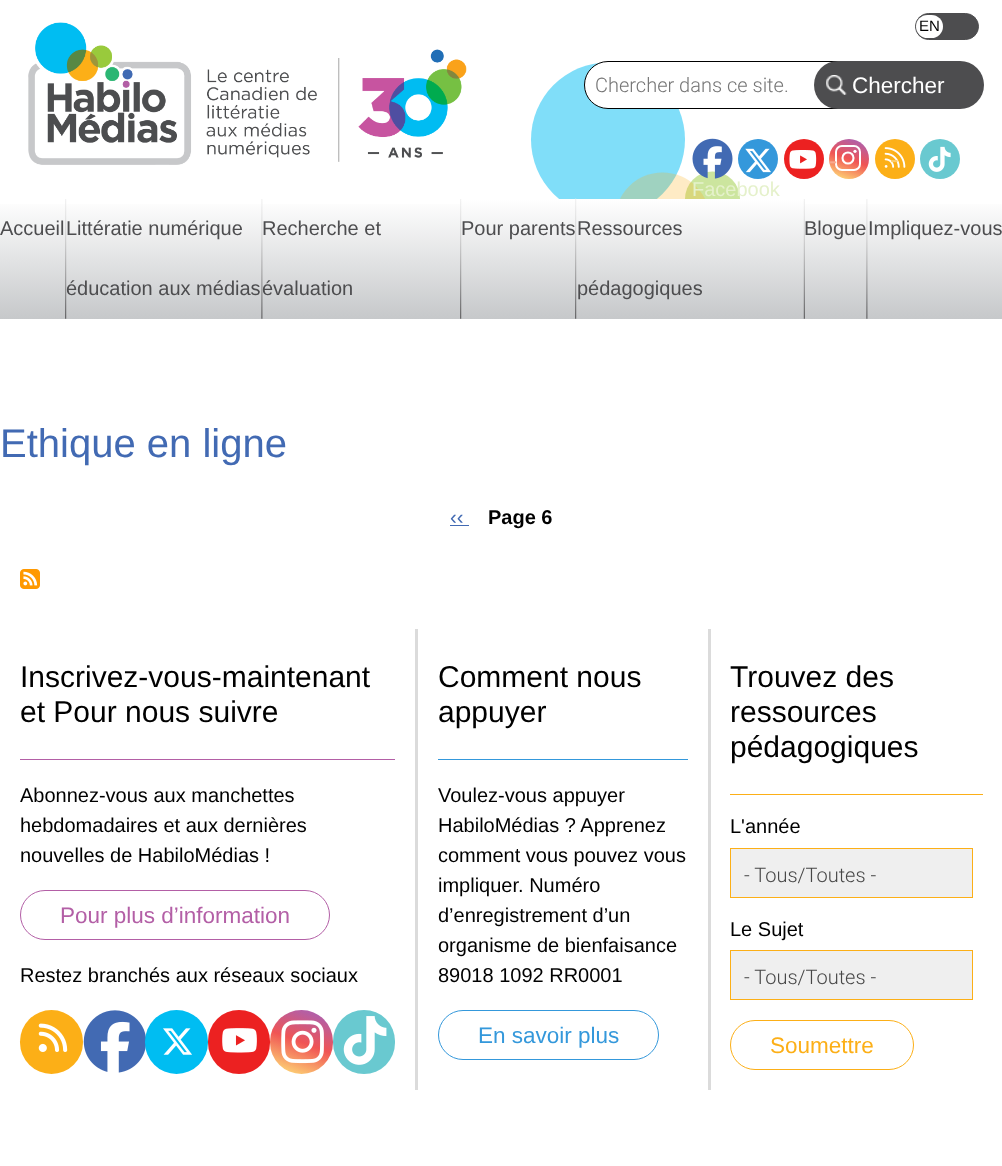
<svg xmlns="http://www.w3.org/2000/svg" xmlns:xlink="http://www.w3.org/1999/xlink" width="1002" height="1166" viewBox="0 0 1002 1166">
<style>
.cls-1{font:15px Liberation Sans;fill:#000000}
.cls-2{font:25px Liberation Sans;fill:#f8ab8f}
.cls-3{font:26px Liberation Sans;fill:#fdcc6c}
.cls-4{font:20px Liberation Sans;fill:#e5f1cb}
.cls-5{font:300 20px Roboto;fill:#757575}
.cls-6{font:22.5px Liberation Sans;fill:#ffffff}
.cls-7{font:20px Liberation Sans;fill:#4d4d4f}
.cls-8{font:40px Liberation Sans;fill:#426ab3}
.cls-9{font:20px Liberation Sans;fill:#426ab3}
.cls-10{font:bold 20px Liberation Sans;fill:#000000}
.cls-11{font:30px Liberation Sans;fill:#000000}
.cls-12{font:20px Liberation Sans;fill:#000000}
.cls-13{font:22.5px Liberation Sans;fill:#b35fa6}
.cls-14{font:22.5px Liberation Sans;fill:#3498db}
.cls-15{font:300 20px Roboto;fill:#474747}
.cls-16{font:22.5px Liberation Sans;fill:#fcaf17}
</style>
<defs>
<linearGradient id="g1" gradientUnits="userSpaceOnUse" x1="858" y1="135" x2="840" y2="183"><stop offset="0.12" stop-color="#b35fa6"/><stop offset="0.5" stop-color="#f05454"/><stop offset="0.91" stop-color="#fdcf74"/></linearGradient>
<linearGradient id="g2" gradientUnits="userSpaceOnUse" x1="32" y1="199" x2="33" y2="319"><stop offset="0" stop-color="#ffffff"/><stop offset="1" stop-color="#c6c8ca"/></linearGradient>
<linearGradient id="g3" gradientUnits="userSpaceOnUse" x1="164" y1="199" x2="164" y2="319"><stop offset="0" stop-color="#ffffff"/><stop offset="1" stop-color="#c6c8ca"/></linearGradient>
<linearGradient id="g4" gradientUnits="userSpaceOnUse" x1="361" y1="199" x2="361" y2="319"><stop offset="0" stop-color="#ffffff"/><stop offset="1" stop-color="#c6c8ca"/></linearGradient>
<linearGradient id="g5" gradientUnits="userSpaceOnUse" x1="518" y1="199" x2="518" y2="319"><stop offset="0" stop-color="#ffffff"/><stop offset="1" stop-color="#c6c8ca"/></linearGradient>
<linearGradient id="g6" gradientUnits="userSpaceOnUse" x1="690" y1="199" x2="690" y2="319"><stop offset="0" stop-color="#ffffff"/><stop offset="1" stop-color="#c6c8ca"/></linearGradient>
<linearGradient id="g7" gradientUnits="userSpaceOnUse" x1="836" y1="199" x2="836" y2="319"><stop offset="0" stop-color="#ffffff"/><stop offset="1" stop-color="#c6c8ca"/></linearGradient>
<linearGradient id="g8" gradientUnits="userSpaceOnUse" x1="935" y1="199" x2="935" y2="319"><stop offset="0" stop-color="#ffffff"/><stop offset="1" stop-color="#c6c8ca"/></linearGradient>
<linearGradient id="g9" gradientUnits="userSpaceOnUse" x1="315" y1="1004" x2="287" y2="1080"><stop offset="0.12" stop-color="#b35fa6"/><stop offset="0.5" stop-color="#f05454"/><stop offset="0.91" stop-color="#fdcf74"/></linearGradient>
</defs>
<rect width="100%" height="100%" fill="#ffffff"/>
<circle fill="#80def9" cx="608" cy="139.5" r="77"/>
<circle fill="#cce59e" cx="712.5" cy="199" r="27.5"/>
<circle fill="#fcaf17" fill-opacity="0.25" cx="662.5" cy="220" r="47.5"/>
<image xlink:href="image0.png" x="28" y="22" width="439" height="143"/>
<rect fill="#4d4d4f" stroke="#4d4d4f" x="915.5" y="13.5" width="63" height="26" rx="13"/>
<rect fill="#ffffff" x="916" y="15" width="27" height="23" rx="11.5"/>
<circle fill="#3498db" cx="758" cy="159" r="20"/>
<image xlink:href="image1.png" x="745" y="148" width="26" height="25"/>
<circle fill="#ec2121" cx="804" cy="159" r="20"/>
<image xlink:href="image2.png" x="789" y="150" width="28" height="19"/>
<circle fill="url(#g1)" cx="849" cy="159" r="20"/>
<circle fill="none" stroke="#ffffff" stroke-width="2.1" cx="848" cy="158" r="5.5"/>
<rect fill="none" stroke="#ffffff" stroke-width="2" x="836" y="146" width="24" height="24" rx="6"/>
<circle fill="#ffffff" cx="855" cy="151.3" r="1.6"/>
<circle fill="#fcaf17" cx="895" cy="159" r="20"/>
<image xlink:href="image3.png" x="884" y="147" width="22" height="21"/>
<circle fill="#69c9d0" cx="940" cy="159" r="20"/>
<image xlink:href="image4.png" x="928" y="146" width="23" height="26"/>
<image xlink:href="image5.png" x="692" y="138" width="41" height="41"/>
<path fill="#ffffff" stroke="#000000" d="M608 61.5H898.5V108.5H608C595 108.5 584.5 98 584.5 85C584.5 72 595 61.5 608 61.5Z"/>
<rect fill="#4d4d4f" x="814" y="61" width="170" height="48" rx="24"/>
<image xlink:href="image6.png" x="826" y="75" width="21" height="20"/>
<rect fill="url(#g2)" x="0" y="204" width="65" height="115"/>
<rect fill="url(#g3)" x="65" y="204" width="196" height="115"/>
<image xlink:href="image7.png" x="65" y="199" width="2" height="120"/>
<rect fill="url(#g4)" x="261" y="204" width="199" height="115"/>
<image xlink:href="image8.png" x="261" y="199" width="2" height="120"/>
<rect fill="url(#g5)" x="460" y="199" width="115" height="120"/>
<image xlink:href="image9.png" x="460" y="199" width="2" height="120"/>
<rect fill="url(#g6)" x="575" y="199" width="229" height="120"/>
<image xlink:href="image10.png" x="575" y="198" width="2" height="121"/>
<rect fill="url(#g7)" x="804" y="204" width="62" height="115"/>
<image xlink:href="image11.png" x="803" y="199" width="2" height="120"/>
<rect fill="url(#g8)" x="866" y="204" width="136" height="115"/>
<image xlink:href="image12.png" x="866" y="199" width="2" height="120"/>
<rect fill="#426ab3" x="450" y="525" width="19" height="1"/>
<image xlink:href="image13.png" x="20" y="569" width="20" height="20"/>
<rect fill="#dbdbdb" x="415" y="629" width="3" height="461"/>
<rect fill="#b35fa6" x="20" y="759" width="375" height="1"/>
<rect fill="none" stroke="#b35fa6" x="20.5" y="890.5" width="309" height="49" rx="24.5"/>
<rect fill="#fcaf17" x="20" y="1010" width="63" height="64" rx="31.5"/>
<image xlink:href="image14.png" x="38" y="1023" width="30" height="29"/>
<image xlink:href="image15.png" x="83" y="1010" width="63" height="63"/>
<rect fill="#00bdf2" x="145" y="1010" width="63" height="64" rx="31.5"/>
<image xlink:href="image16.png" x="163" y="1028" width="29" height="27"/>
<rect fill="#ec2121" x="208" y="1010" width="62" height="64" rx="31"/>
<image xlink:href="image17.png" x="222" y="1028" width="35" height="25"/>
<rect fill="url(#g9)" x="270" y="1010" width="63" height="64" rx="31.5"/>
<image xlink:href="image18.png" x="281" y="1020" width="43" height="44"/>
<rect fill="#69c9d0" x="333" y="1010" width="62" height="64" rx="31"/>
<image xlink:href="image19.png" x="343" y="1016" width="44" height="49"/>
<rect fill="#dbdbdb" x="708" y="629" width="3" height="461"/>
<rect fill="#3498db" x="438" y="759" width="250" height="1"/>
<rect fill="none" stroke="#3498db" x="438.5" y="1010.5" width="220" height="49" rx="24.5"/>
<rect fill="#fcaf17" x="730" y="794" width="253" height="1"/>
<rect fill="#efefef" stroke="#fcaf17" x="730.5" y="848.5" width="242" height="49"/>
<rect fill="#efefef" stroke="#fcaf17" x="730.5" y="950.5" width="242" height="49"/>
<rect fill="none" stroke="#fcaf17" x="730.5" y="1020.5" width="183" height="49" rx="24.5"/>
<text class="cls-1" x="919" y="31">EN</text>
<text class="cls-2" x="829" y="169">-</text>
<text class="cls-3" x="890" y="168">-</text>
<text class="cls-4" x="692" y="196">Facebook</text>
<text class="cls-5" x="595" y="92">Chercher dans ce site.</text>
<text class="cls-6" x="852" y="93">Chercher</text>
<text class="cls-7" x="0" y="235">Accueil</text>
<text class="cls-7" x="66" y="235">Littératie numérique</text>
<text class="cls-7" x="66" y="295">éducation aux médias</text>
<text class="cls-7" x="262" y="235">Recherche et</text>
<text class="cls-7" x="262" y="295">évaluation</text>
<text class="cls-7" x="461" y="235">Pour parents</text>
<text class="cls-7" x="577" y="235">Ressources</text>
<text class="cls-7" x="577" y="295">pédagogiques</text>
<text class="cls-7" x="804" y="235">Blogue</text>
<text class="cls-7" x="868" y="235">Impliquez-vous</text>
<text class="cls-8" x="0" y="457">Ethique en ligne</text>
<text class="cls-9" x="450" y="524">‹‹</text>
<text class="cls-10" x="488" y="524">Page 6</text>
<text class="cls-11"><tspan x="20" y="687">Inscrivez-vous-maintenant</tspan><tspan x="20" y="722">et Pour nous suivre</tspan></text>
<text class="cls-12"><tspan x="20" y="802">Abonnez-vous aux manchettes</tspan><tspan x="20" y="832">hebdomadaires et aux dernières</tspan><tspan x="20" y="862">nouvelles de HabiloMédias !</tspan></text>
<text class="cls-13" x="60" y="923">Pour plus d’information</text>
<text class="cls-12" x="20" y="982">Restez branchés aux réseaux sociaux</text>
<text class="cls-11"><tspan x="438" y="687">Comment nous</tspan><tspan x="438" y="722">appuyer</tspan></text>
<text class="cls-12"><tspan x="438" y="802">Voulez-vous appuyer</tspan><tspan x="438" y="832">HabiloMédias ? Apprenez</tspan><tspan x="438" y="862">comment vous pouvez vous</tspan><tspan x="438" y="892">impliquer. Numéro</tspan><tspan x="438" y="922">d’enregistrement d’un</tspan><tspan x="438" y="952">organisme de bienfaisance</tspan><tspan x="438" y="982">89018 1092 RR0001</tspan></text>
<text class="cls-14" x="478" y="1043">En savoir plus</text>
<text class="cls-11"><tspan x="730" y="687">Trouvez des</tspan><tspan x="730" y="722">ressources</tspan><tspan x="730" y="757">pédagogiques</tspan></text>
<text class="cls-12" x="730" y="833">L'année</text>
<text class="cls-15" x="744" y="882">- Tous/Toutes -</text>
<text class="cls-12" x="730" y="936">Le Sujet</text>
<text class="cls-15" x="744" y="984">- Tous/Toutes -</text>
<text class="cls-16" x="770" y="1053">Soumettre</text>
</svg>
